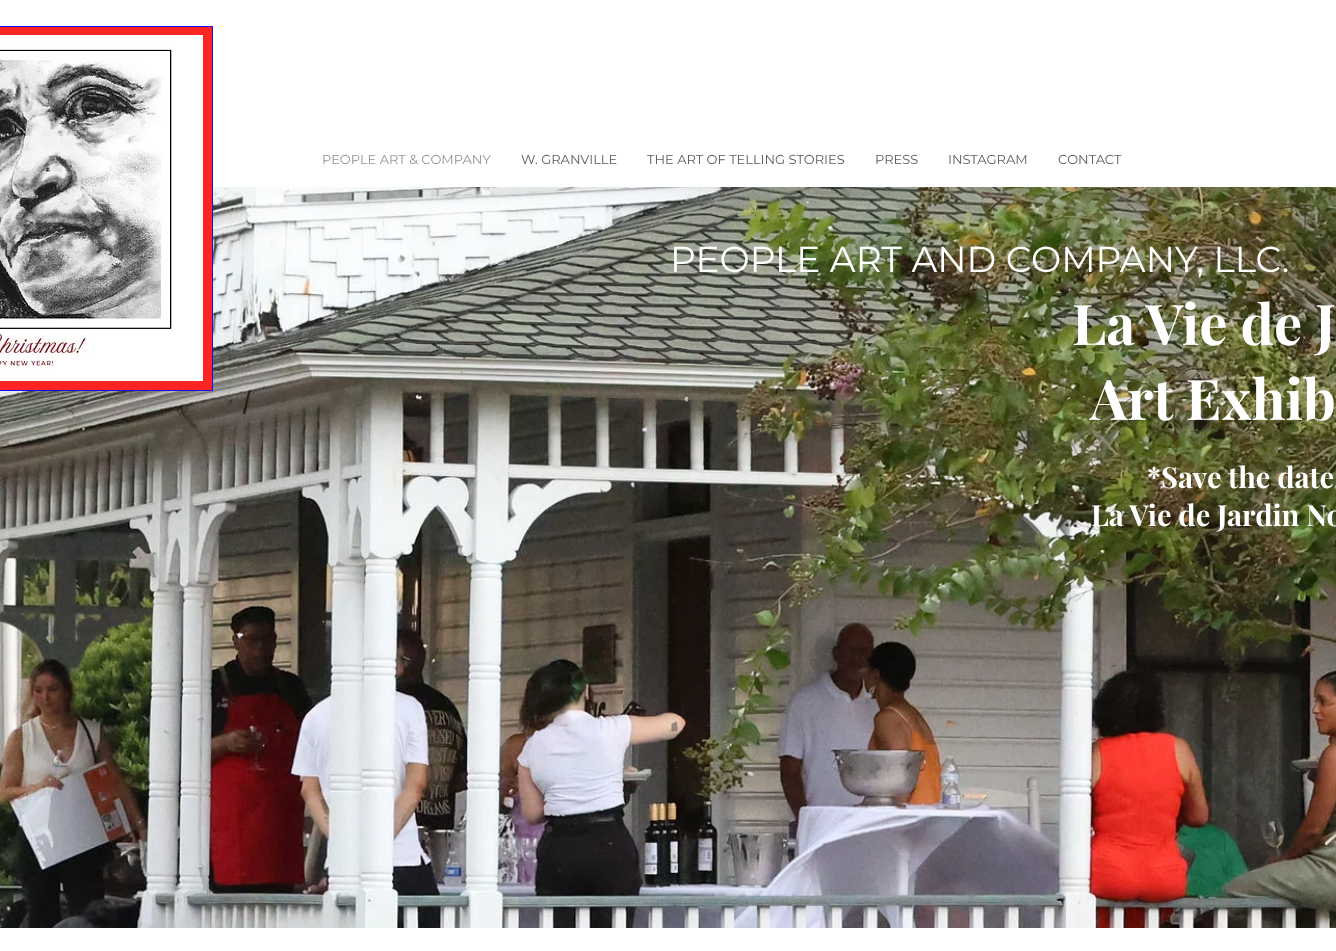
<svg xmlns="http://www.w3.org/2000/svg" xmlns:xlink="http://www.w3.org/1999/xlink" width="1336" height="951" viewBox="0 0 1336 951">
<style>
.cls-1{font:13px Montserrat;fill:#979292}
.cls-2{font:13px Montserrat;fill:#5c5c5c}
.cls-3{font:36px Montserrat;fill:#ffffff}
.cls-4{font:bold 56px Playfair Display;fill:#ffffff}
.cls-5{font:bold 29px Playfair Display;fill:#ffffff}
</style>
<rect width="100%" height="100%" fill="#ffffff"/>
<image xlink:href="image1.png" x="0" y="187" width="1336" height="741"/>
<rect fill="#ff2424" stroke="#170df2" x="-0.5" y="26.5" width="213" height="364"/>
<image xlink:href="image0.png" x="0" y="35" width="203" height="346"/>
<text class="cls-1" x="322" y="164">PEOPLE ART &amp; COMPANY</text>
<text class="cls-2" x="521" y="164">W. GRANVILLE</text>
<text class="cls-2" x="647" y="164">THE ART OF TELLING STORIES</text>
<text class="cls-2" x="875" y="164">PRESS</text>
<text class="cls-2" x="948" y="164">INSTAGRAM</text>
<text class="cls-2" x="1058" y="164">CONTACT</text>
<text class="cls-3" x="670" y="272">PEOPLE ART AND COMPANY, LLC.</text>
<text class="cls-4" x="1072" y="345">La Vie de J</text>
<text class="cls-4" x="1090" y="420">Art Exhib</text>
<text class="cls-5" x="1147" y="488">*Save the date</text>
<text class="cls-5" x="1091" y="526">La Vie de Jardin No</text>
</svg>
